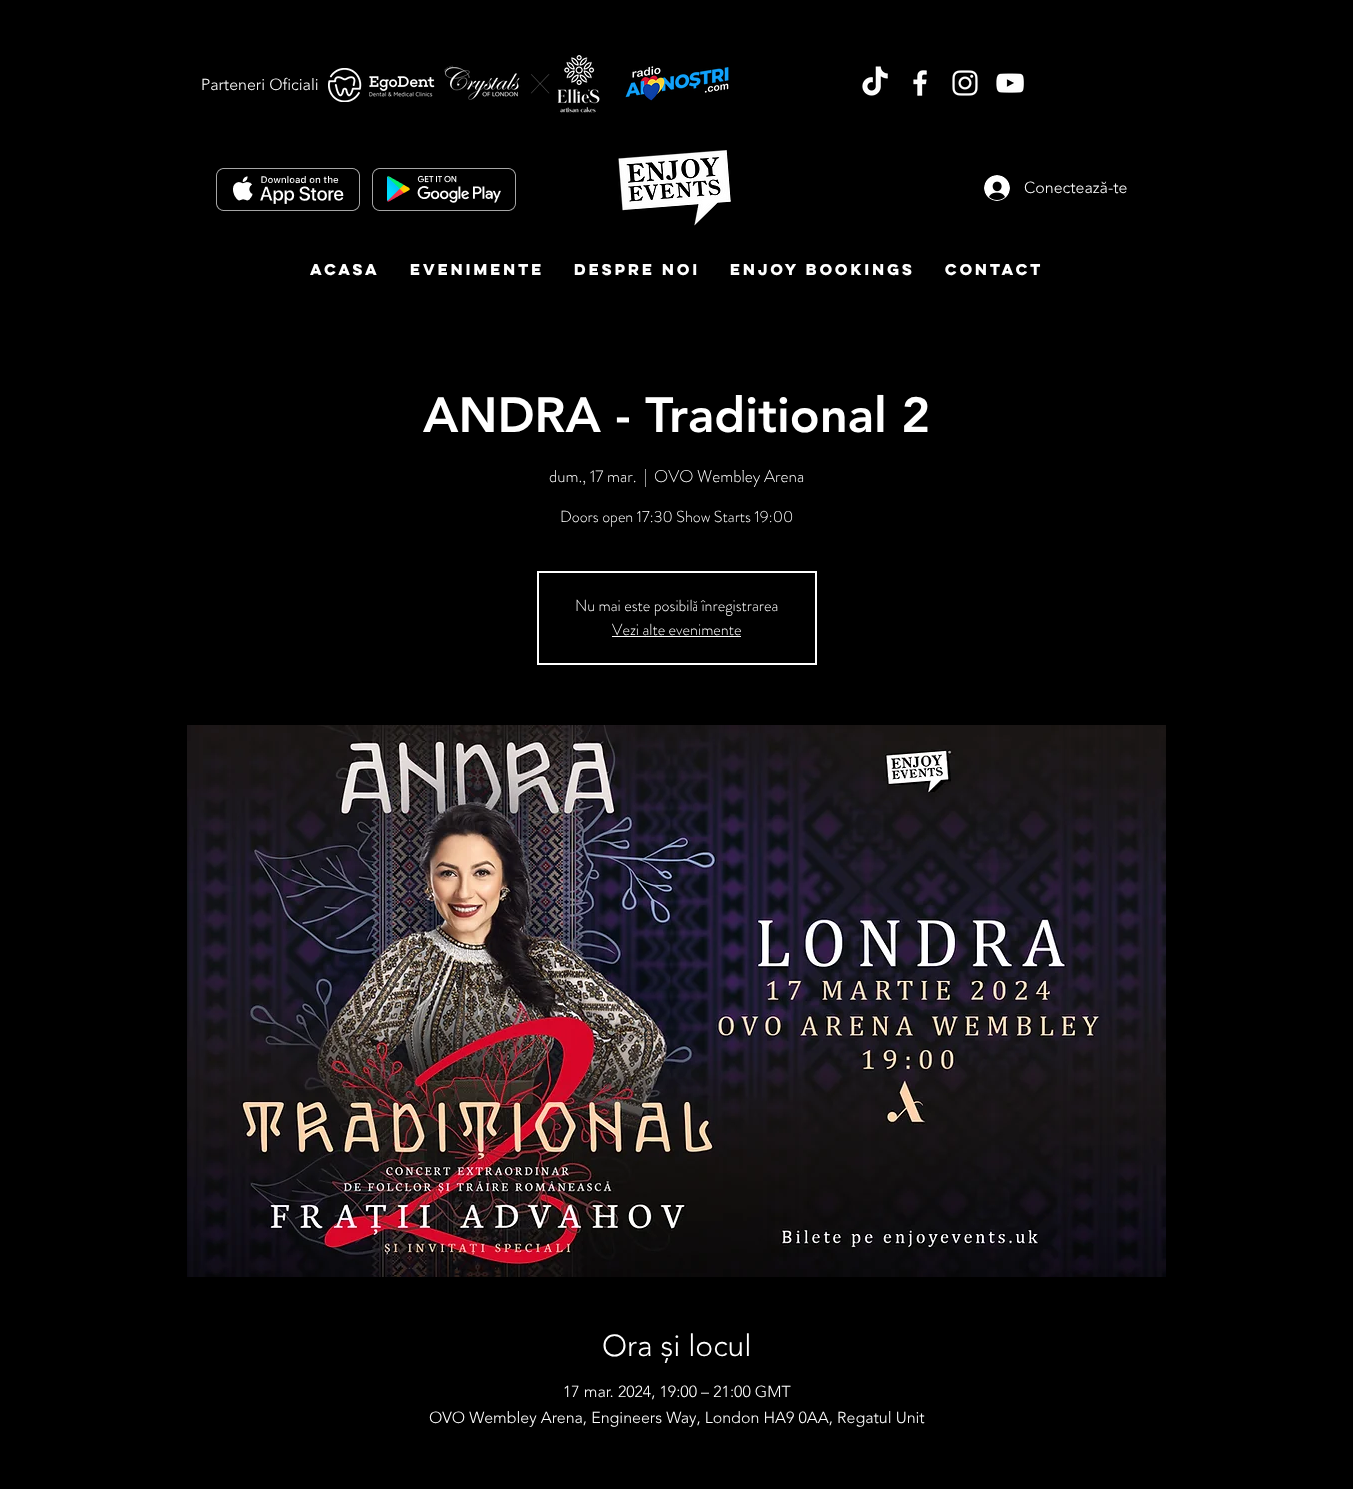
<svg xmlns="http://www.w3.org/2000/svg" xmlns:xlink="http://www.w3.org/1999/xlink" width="1353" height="1489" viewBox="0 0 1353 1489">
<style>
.cls-1{font:300 16px 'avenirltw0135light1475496';fill:#ffffff}
.cls-2{font:bold 14px 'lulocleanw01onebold';fill:#ffffff}
.cls-3{font:900 49px 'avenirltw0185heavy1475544';fill:#ffffff}
.cls-4{font:300 17px 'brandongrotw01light';fill:#ffffff}
.cls-5{font:300 16px 'brandongrotw01light';fill:#ffffff}
.cls-6{font:300 30px 'avenirltw0135light1475496';fill:#ffffff}
</style>
<rect width="100%" height="100%" fill="#000000"/>
<image xlink:href="image0.png" x="328" y="68" width="107" height="34"/>
<image xlink:href="image1.png" x="444" y="55" width="156" height="58"/>
<image xlink:href="image2.png" x="625" y="66" width="104" height="35"/>
<image xlink:href="image3.png" x="862" y="66" width="26" height="30"/>
<image xlink:href="image4.png" x="913" y="70" width="14" height="26"/>
<image xlink:href="image5.png" x="952" y="70" width="26" height="26"/>
<image xlink:href="image6.png" x="996" y="73" width="28" height="20"/>
<image xlink:href="image7.png" x="216" y="168" width="144" height="43"/>
<image xlink:href="image8.png" x="372" y="168" width="144" height="43"/>
<image xlink:href="image9.png" x="618" y="150" width="113" height="76"/>
<image xlink:href="image10.png" x="984" y="175" width="26" height="26"/>
<rect fill="none" stroke="#ffffff" stroke-width="2" x="538" y="572" width="278" height="92"/>
<rect fill="#ffffff" x="612" y="636" width="129" height="1"/>
<image xlink:href="image11.png" x="187" y="725" width="979" height="552"/>
<text class="cls-1" x="201" y="90">Parteneri Oficiali</text>
<text class="cls-1" x="1024" y="193">Conectează-te</text>
<text class="cls-2" x="310" y="275">ACASA</text>
<text class="cls-2" x="410" y="275">EVENIMENTE</text>
<text class="cls-2" x="574" y="275">DESPRE NOI</text>
<text class="cls-2" x="730" y="275">ENJOY BOOKINGS</text>
<text class="cls-2" x="945" y="275">CONTACT</text>
<text class="cls-3" x="423" y="432">ANDRA - Traditional 2</text>
<text class="cls-4" x="549" y="482">dum., 17 mar.</text>
<text class="cls-4" x="644" y="482">|</text>
<text class="cls-4" x="654" y="482">OVO Wembley Arena</text>
<text class="cls-5" x="560" y="522">Doors open 17:30 Show Starts 19:00</text>
<text class="cls-5" x="575" y="611">Nu mai este posibilă înregistrarea</text>
<text class="cls-5" x="612" y="635">Vezi alte evenimente</text>
<text class="cls-6" x="602" y="1356">Ora și locul</text>
<text class="cls-1" x="563" y="1397">17 mar. 2024, 19:00 – 21:00 GMT</text>
<text class="cls-1" x="429" y="1423">OVO Wembley Arena, Engineers Way, London HA9 0AA, Regatul Unit</text>
</svg>
